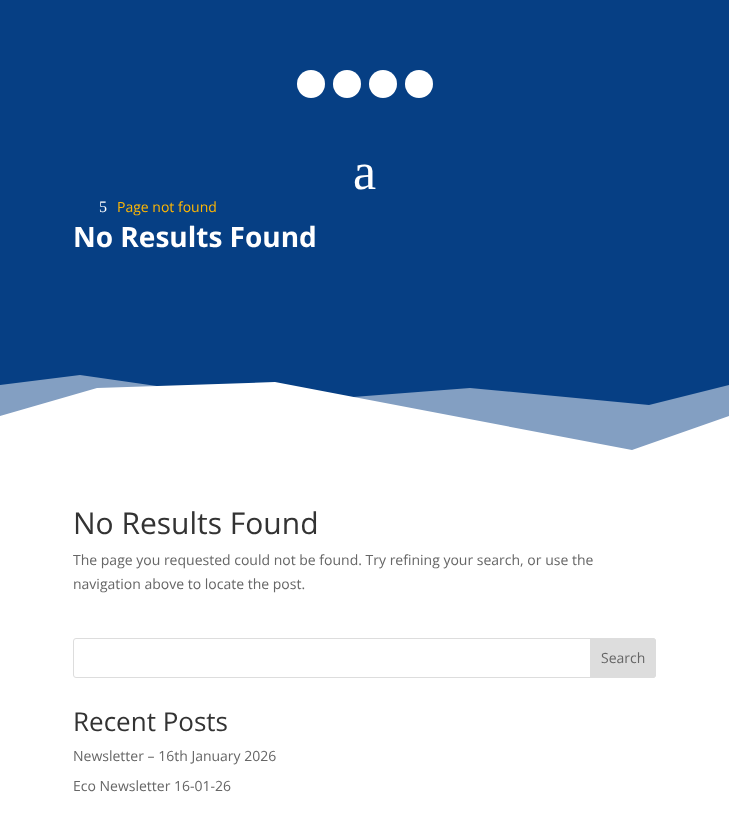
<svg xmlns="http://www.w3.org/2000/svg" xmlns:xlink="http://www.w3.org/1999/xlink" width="729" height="817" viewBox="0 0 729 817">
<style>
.cls-1{font:52px Liberation Serif;fill:#ffffff}
.cls-2{font:16px Liberation Serif;fill:#ffffff}
.cls-3{font:14px Open Sans;fill:#ffb703}
.cls-4{font:bold 28px Open Sans;fill:#ffffff}
.cls-5{font:30px Open Sans;fill:#333333}
.cls-6{font:14px Open Sans;fill:#666666}
.cls-7{font:26px Open Sans;fill:#333333}
</style>
<rect width="100%" height="100%" fill="#ffffff"/>
<rect fill="#063f84" x="0" y="0" width="729" height="405"/>
<circle fill="#ffffff" cx="311" cy="84" r="14"/>
<circle fill="#ffffff" cx="347" cy="84" r="14"/>
<circle fill="#ffffff" cx="383" cy="84" r="14"/>
<circle fill="#ffffff" cx="419" cy="84" r="14"/>
<path fill="#839fc2" d="M729 385L649 405L470 388L275 403L80 375L0 385V450H729Z"/>
<path fill="#ffffff" d="M729 450V416L632 450L275 382L97 388L0 416V450Z"/>
<rect fill="none" stroke="#dddddd" x="73.5" y="638.5" width="582" height="39" rx="2.5"/>
<path fill="#dddddd" stroke="#dddddd" d="M590.5 638.5H653C654.5 638.5 655.5 639.5 655.5 641V675C655.5 676.5 654.5 677.5 653 677.5H590.5Z"/>
<text class="cls-1" x="353" y="189">a</text>
<text class="cls-2" x="99" y="212">5</text>
<text class="cls-3" x="117" y="212">Page not found</text>
<text class="cls-4" x="73" y="247">No Results Found</text>
<text class="cls-5" x="73" y="534">No Results Found</text>
<text class="cls-6"><tspan x="73" y="565">The page you requested could not be found. Try refining your search, or use the</tspan><tspan x="73" y="589">navigation above to locate the post.</tspan></text>
<text class="cls-6" x="601" y="663">Search</text>
<text class="cls-7" x="73" y="731">Recent Posts</text>
<text class="cls-6" x="73" y="761">Newsletter – 16th January 2026</text>
<text class="cls-6" x="73" y="791">Eco Newsletter 16-01-26</text>
</svg>
